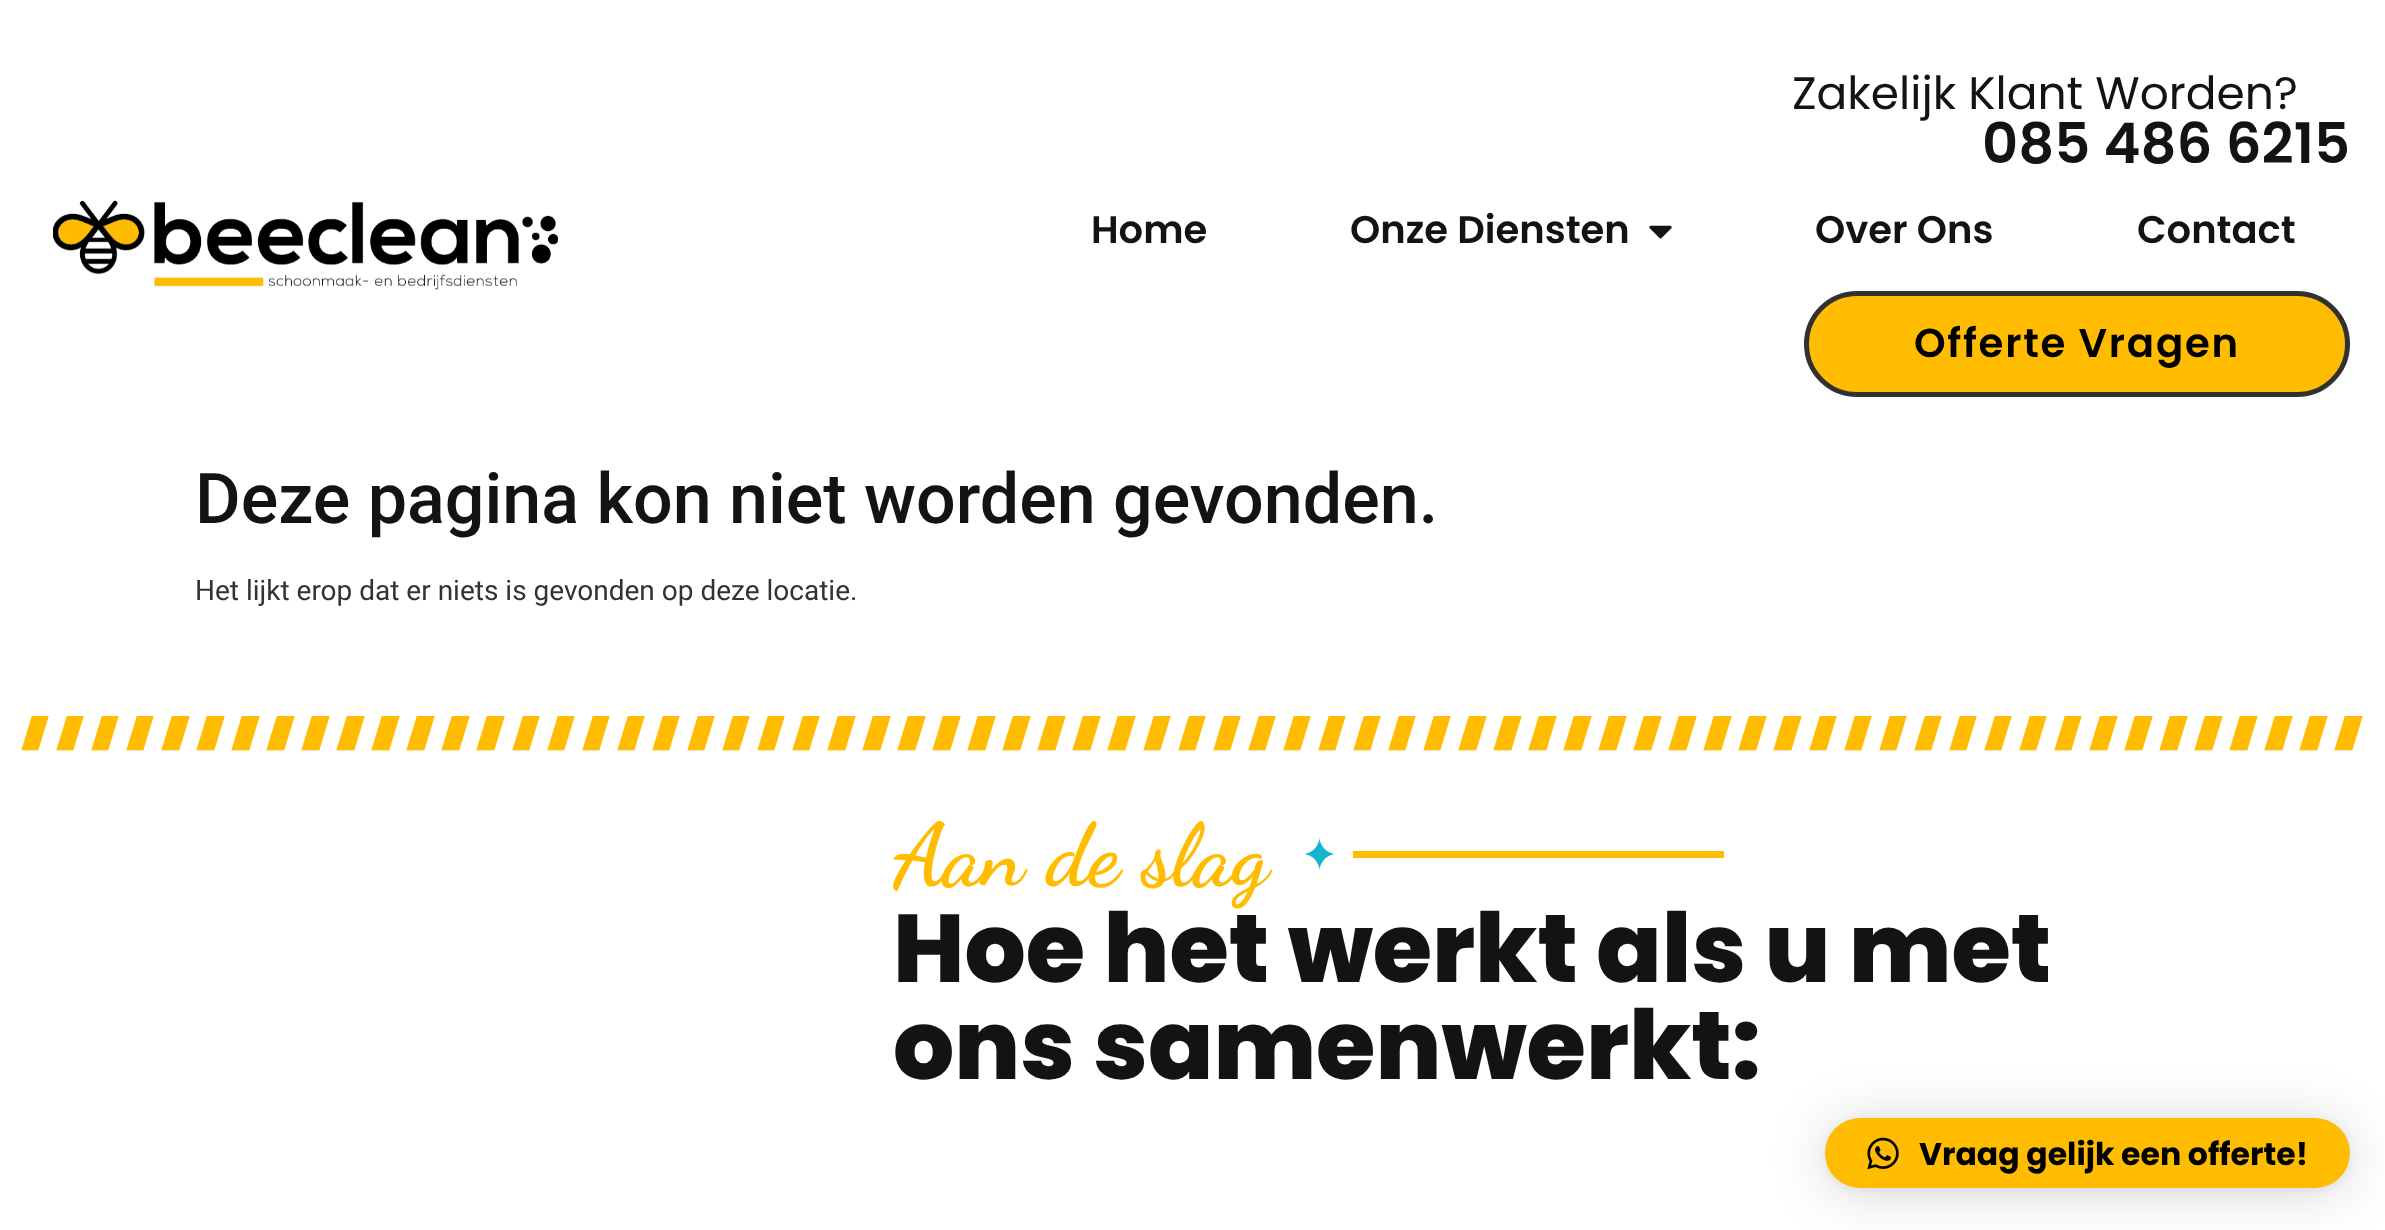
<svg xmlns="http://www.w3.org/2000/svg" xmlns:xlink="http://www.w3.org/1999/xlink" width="2385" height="1230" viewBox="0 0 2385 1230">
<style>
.cls-1{font:45.5px Poppins;fill:#131313}
.cls-2{font:600 56px Poppins;fill:#131313}
.cls-3{font:600 38.5px Poppins;fill:#131313}
.cls-4{font:600 40.25px Poppins;letter-spacing:1.75px;fill:#000000}
.cls-5{font:500 70px Roboto;fill:#131313}
.cls-6{font:28px Roboto;fill:#333333}
.cls-7{font:bold 87.5px Dancing Script;fill:#ffbc00}
.cls-8{font:800 96.25px Poppins;fill:#131313}
.cls-9{font:bold 31.5px Poppins;fill:#000000}
</style>
<rect width="100%" height="100%" fill="#ffffff"/>
<image xlink:href="image0.png" x="53" y="200" width="505" height="90"/>
<image xlink:href="image1.png" x="1649" y="225" width="23" height="14"/>
<rect fill="#ffbc00" stroke="#313131" stroke-width="5" x="1806.5" y="293.5" width="541" height="101" rx="50.5"/>
<image xlink:href="image2.png" x="21" y="716" width="2342" height="35"/>
<image xlink:href="image3.png" x="1305" y="838" width="29" height="32"/>
<rect fill="#ffbc00" x="1353" y="851" width="371" height="7"/>
<rect fill="#000000" fill-opacity="0.16" filter="blur(28px)" x="1825" y="1122" width="525" height="70" rx="35"/>
<rect fill="#000000" fill-opacity="0.06" filter="blur(5px)" x="1825" y="1120" width="525" height="70" rx="35"/>
<rect fill="#ffbc00" x="1825" y="1118" width="525" height="70" rx="35"/>
<image xlink:href="image4.png" x="1867" y="1137" width="32" height="33"/>
<text class="cls-1" x="1792" y="109">Zakelijk Klant Worden?</text>
<text class="cls-2" x="1982" y="163">085 486 6215</text>
<text class="cls-3" x="1091" y="243">Home</text>
<text class="cls-3" x="1350" y="243">Onze Diensten</text>
<text class="cls-3" x="1815" y="243">Over Ons</text>
<text class="cls-3" x="2137" y="243">Contact</text>
<text class="cls-4" x="1914" y="357">Offerte Vragen</text>
<text class="cls-5" x="195" y="523">Deze pagina kon niet worden gevonden.</text>
<text class="cls-6" x="195" y="600">Het lijkt erop dat er niets is gevonden op deze locatie.</text>
<text class="cls-7" x="893" y="884">Aan de slag</text>
<text class="cls-8"><tspan x="893" y="982">Hoe het werkt als u met</tspan><tspan x="893" y="1079">ons samenwerkt:</tspan></text>
<text class="cls-9" x="1919" y="1165">Vraag gelijk een offerte!</text>
</svg>
